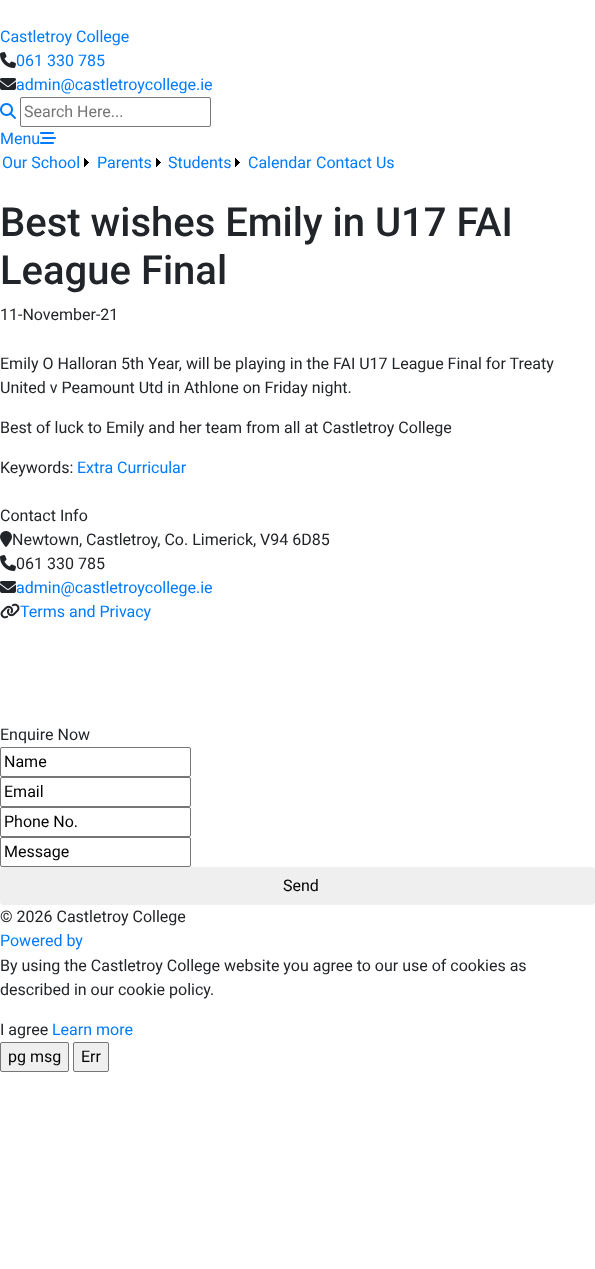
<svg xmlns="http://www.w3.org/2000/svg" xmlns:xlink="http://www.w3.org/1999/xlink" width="595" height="1269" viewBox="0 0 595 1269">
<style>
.cls-1{font:16px Roboto;fill:#007bff}
.cls-2{font:16px Roboto;fill:#757575}
.cls-3{font:500 40px Roboto;fill:#212529}
.cls-4{font:16px Roboto;fill:#212529}
.cls-5{font:16px Roboto;fill:#000000}
</style>
<rect width="100%" height="100%" fill="#ffffff"/>
<image xlink:href="image0.png" x="0" y="52" width="16" height="16"/>
<image xlink:href="image1.png" x="0" y="78" width="16" height="12"/>
<image xlink:href="image2.png" x="0" y="103" width="16" height="16"/>
<rect fill="none" stroke="#767676" x="20.5" y="97.5" width="190" height="29" rx="1.5"/>
<image xlink:href="image3.png" x="40" y="132" width="16" height="12"/>
<image xlink:href="image4.png" x="84" y="158" width="5" height="9"/>
<image xlink:href="image4.png" x="156" y="158" width="5" height="9"/>
<image xlink:href="image4.png" x="235" y="158" width="5" height="9"/>
<image xlink:href="image5.png" x="0" y="531" width="12" height="16"/>
<image xlink:href="image0.png" x="0" y="555" width="16" height="16"/>
<image xlink:href="image1.png" x="0" y="581" width="16" height="12"/>
<image xlink:href="image6.png" x="0" y="603" width="20" height="16"/>
<rect fill="none" stroke="#767676" x="0.5" y="747.5" width="190" height="29" rx="1.5"/>
<rect fill="none" stroke="#767676" x="0.5" y="777.5" width="190" height="29" rx="1.5"/>
<rect fill="none" stroke="#767676" x="0.5" y="807.5" width="190" height="29" rx="1.5"/>
<rect fill="none" stroke="#767676" x="0.5" y="837.5" width="190" height="29" rx="1.5"/>
<rect fill="#efefef" x="0" y="867" width="595" height="38" rx="4"/>
<rect fill="#efefef" stroke="#767676" x="0.5" y="1042.5" width="68" height="29" rx="1.5"/>
<rect fill="#efefef" stroke="#767676" x="73.5" y="1042.5" width="35" height="29" rx="1.5"/>
<text class="cls-1" x="0" y="42">Castletroy College</text>
<text class="cls-1"><tspan x="16" y="66">061 330 785</tspan><tspan x="16" y="90">admin@castletroycollege.ie</tspan></text>
<text class="cls-2" x="24" y="117">Search Here...</text>
<text class="cls-1" x="0" y="144">Menu</text>
<text class="cls-1" x="2" y="168">Our School</text>
<text class="cls-1" x="97" y="168">Parents</text>
<text class="cls-1" x="168" y="168">Students</text>
<text class="cls-1" x="248" y="168">Calendar</text>
<text class="cls-1" x="316" y="168">Contact Us</text>
<text class="cls-3"><tspan x="0" y="236">Best wishes Emily in U17 FAI</tspan><tspan x="0" y="284">League Final</tspan></text>
<text class="cls-4" x="0" y="320">11-November-21</text>
<text class="cls-4"><tspan x="0" y="369">Emily O Halloran 5th Year, will be playing in the FAI U17 League Final for Treaty</tspan><tspan x="0" y="393">United v Peamount Utd in Athlone on Friday night.</tspan></text>
<text class="cls-4" x="0" y="433">Best of luck to Emily and her team from all at Castletroy College</text>
<text class="cls-4" x="0" y="473">Keywords:</text>
<text class="cls-1" x="77" y="473">Extra Curricular</text>
<text class="cls-4" x="0" y="521">Contact Info</text>
<text class="cls-4" x="12" y="545">Newtown, Castletroy, Co. Limerick, V94 6D85</text>
<text class="cls-4" x="16" y="569">061 330 785</text>
<text class="cls-1" x="16" y="593">admin@castletroycollege.ie</text>
<text class="cls-1" x="20" y="617">Terms and Privacy</text>
<text class="cls-4" x="0" y="740">Enquire Now</text>
<text class="cls-5"><tspan x="4" y="767">Name</tspan><tspan x="4" y="797">Email</tspan><tspan x="4" y="827">Phone No.</tspan><tspan x="4" y="857">Message</tspan></text>
<text class="cls-5" x="283" y="891">Send</text>
<text class="cls-4" x="0" y="922">© 2026 Castletroy College</text>
<text class="cls-1" x="0" y="946">Powered by</text>
<text class="cls-4"><tspan x="0" y="971">By using the Castletroy College website you agree to our use of cookies as</tspan><tspan x="0" y="995">described in our cookie policy.</tspan></text>
<text class="cls-4" x="0" y="1035">I agree</text>
<text class="cls-1" x="52" y="1035">Learn more</text>
<text class="cls-5" x="8" y="1062">pg msg</text>
<text class="cls-5" x="81" y="1062">Err</text>
</svg>
